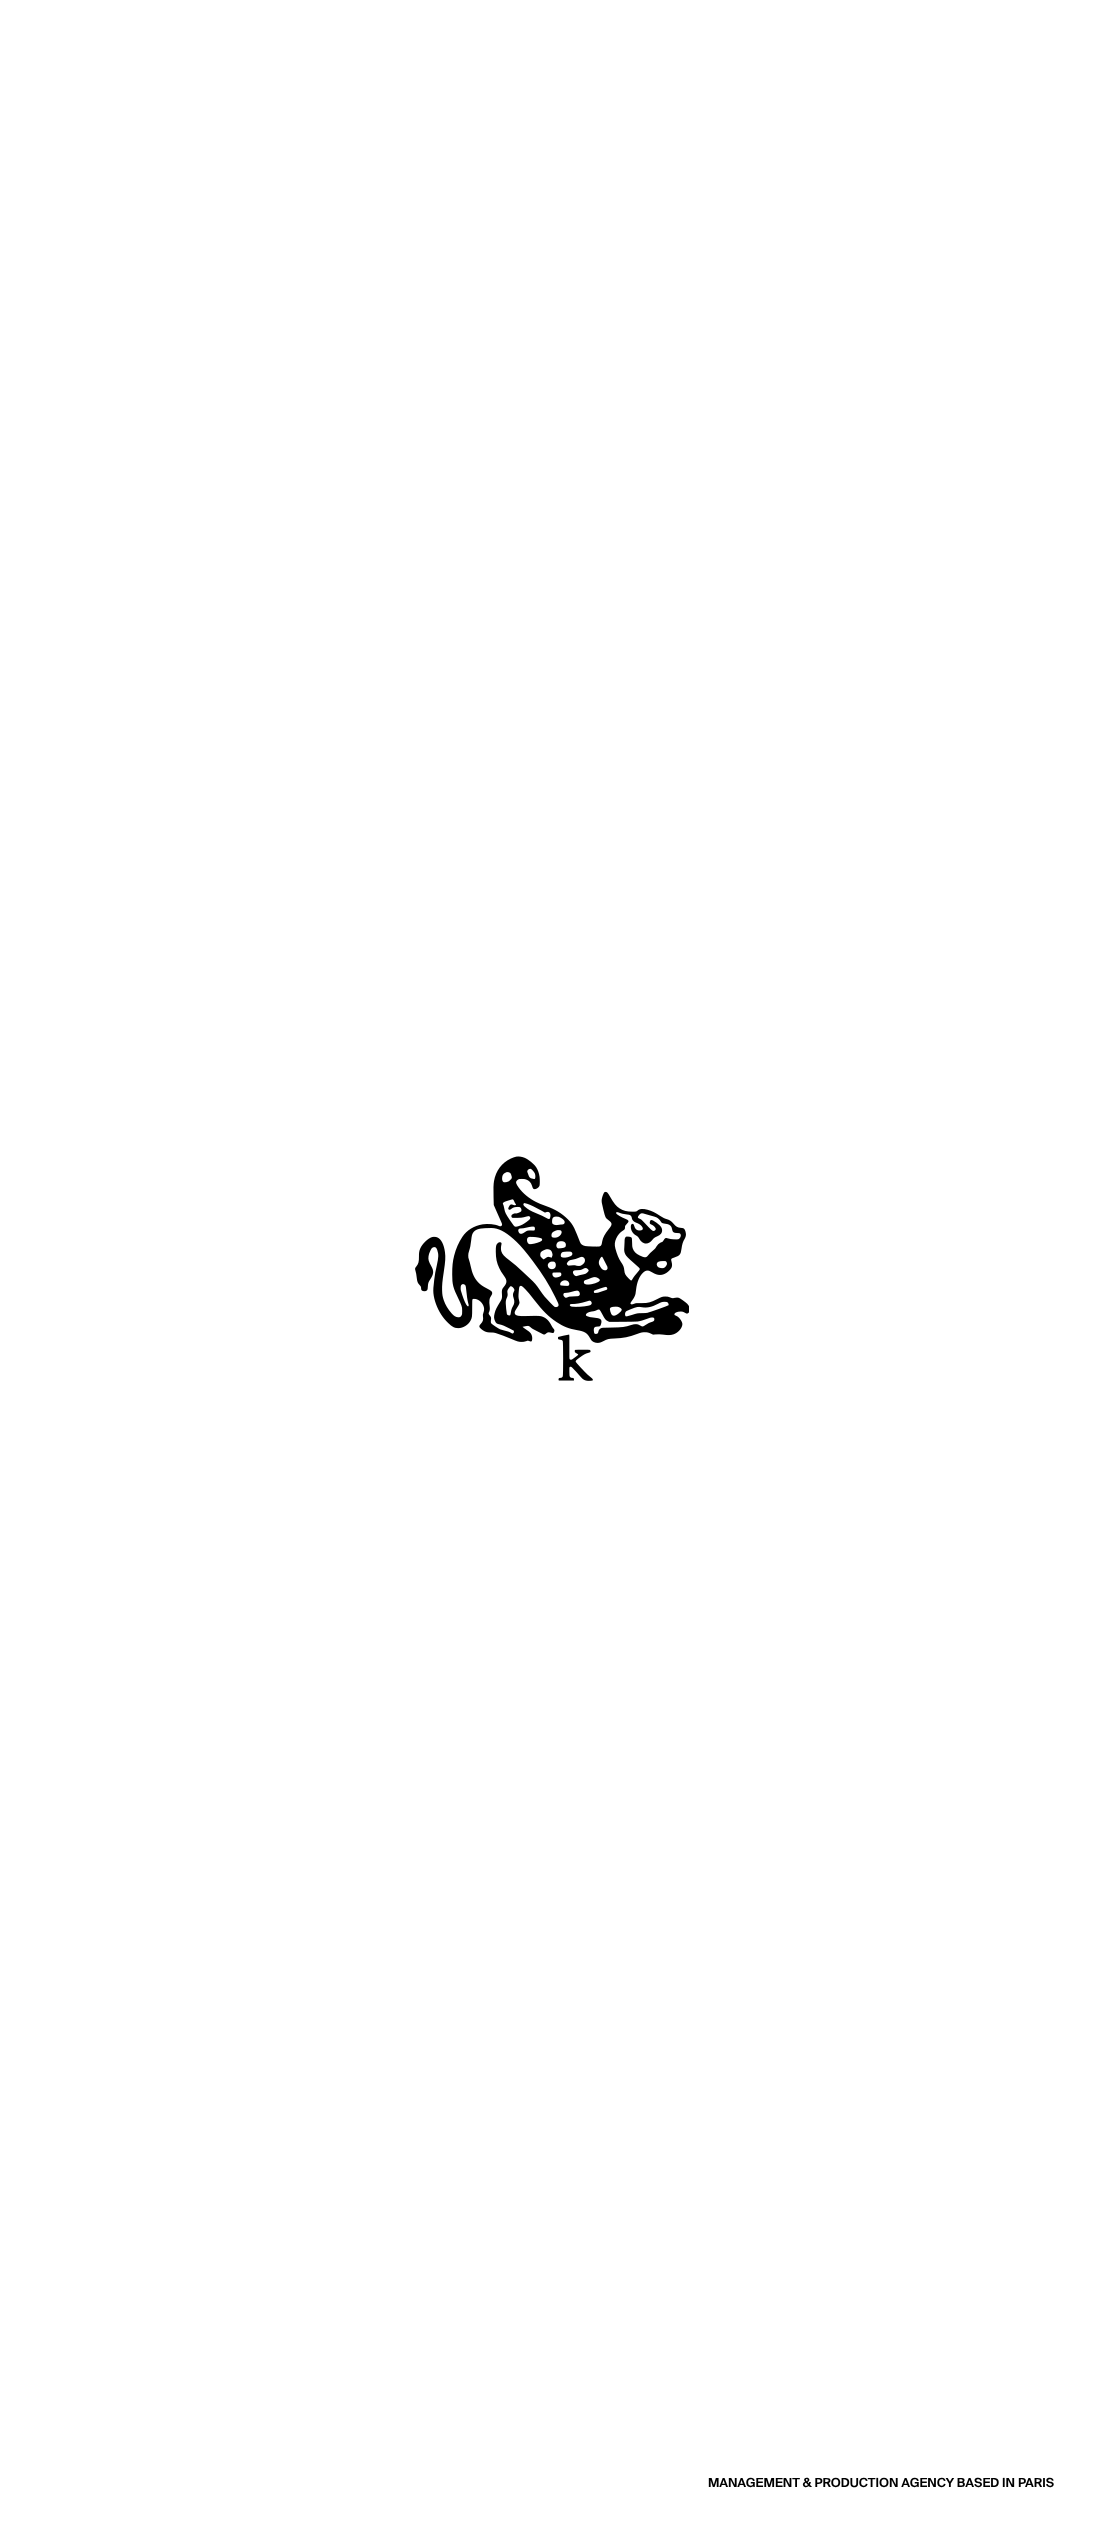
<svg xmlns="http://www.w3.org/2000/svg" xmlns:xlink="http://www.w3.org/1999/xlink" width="1103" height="2542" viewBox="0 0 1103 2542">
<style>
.cls-1{font:600 13.75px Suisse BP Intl;fill:#000000}
</style>
<rect width="100%" height="100%" fill="#ffffff"/>
<image xlink:href="image0.png" x="415" y="1156" width="274" height="225"/>
<text class="cls-1" x="708" y="2487">MANAGEMENT &amp; PRODUCTION AGENCY BASED IN PARIS</text>
</svg>
